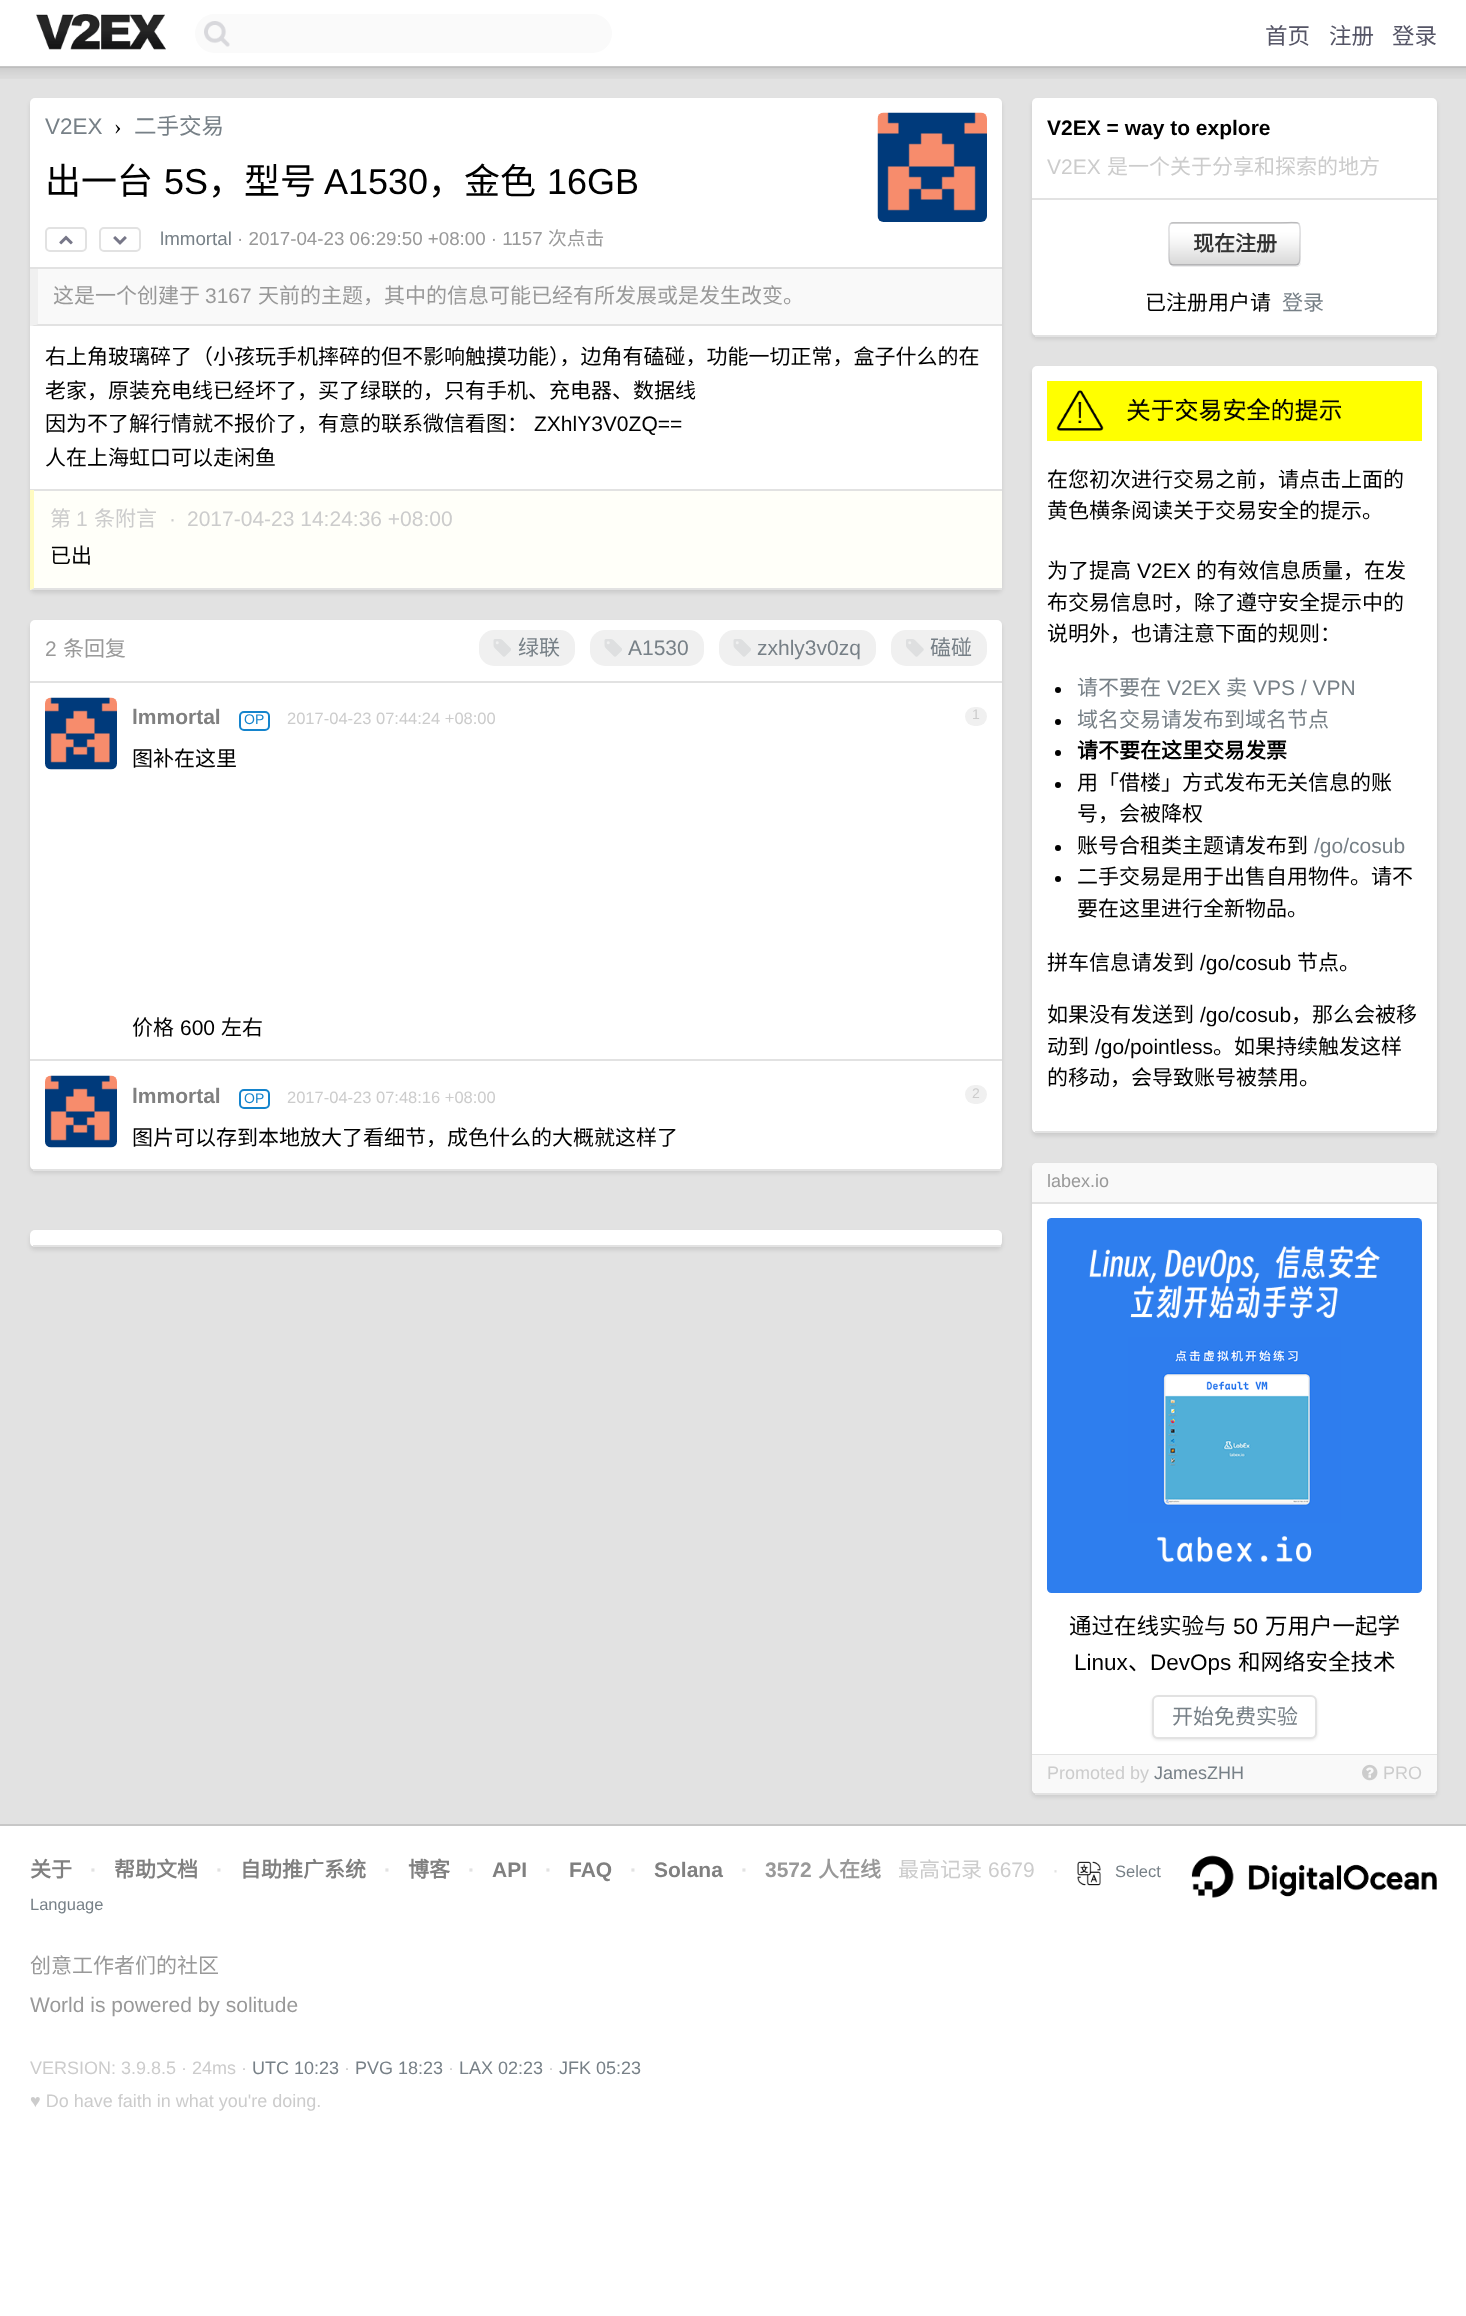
<svg xmlns="http://www.w3.org/2000/svg" xmlns:xlink="http://www.w3.org/1999/xlink" width="1466" height="2316" viewBox="0 0 1466 2316">
<style>
.cls-1{font:22.5px Noto Sans CJK SC;fill:#555566}
.cls-2{font:22.5px Liberation Sans;fill:#778087}
.cls-3{font:22.5px Liberation Serif;fill:#000000}
.cls-4{font:22.5px Noto Sans CJK SC;fill:#778087}
.cls-5{font:36px Noto Sans CJK SC;fill:#000000}
.cls-6{font:36px Liberation Sans;fill:#000000}
.cls-7{font:18.75px Liberation Sans;fill:#778087}
.cls-8{font:18.75px Liberation Sans;fill:#999999}
.cls-9{font:18.75px Noto Sans CJK SC;fill:#999999}
.cls-10{font:21px Noto Sans CJK SC;fill:#999999}
.cls-11{font:21px Liberation Sans;fill:#999999}
.cls-12{font:21px Noto Sans CJK SC;fill:#000000}
.cls-13{font:21px Liberation Sans;fill:#000000}
.cls-14{font:21px Noto Sans CJK SC;fill:#cccccc}
.cls-15{font:21px Liberation Sans;fill:#cccccc}
.cls-16{font:21px Noto Sans CJK SC;fill:#778087}
.cls-17{font:21px Liberation Sans;fill:#778087}
.cls-18{font:bold 21px Liberation Sans;fill:#808080}
.cls-19{font:14px Liberation Sans;fill:#1484cd}
.cls-20{font:16.5px Liberation Sans;fill:#cccccc}
.cls-21{font:14px Liberation Sans;fill:#cccccc}
.cls-22{font:bold 21px Liberation Sans;fill:#000000}
.cls-23{font:bold 21px Noto Sans CJK SC;fill:#333333}
.cls-24{font:bold 21px Noto Sans CJK SC;fill:#000000}
.cls-25{font:18px Liberation Sans;fill:#999999}
.cls-26{font:22.5px Noto Sans CJK SC;fill:#000000}
.cls-27{font:22.5px Liberation Sans;fill:#000000}
.cls-28{font:18px Liberation Sans;fill:#cccccc}
.cls-29{font:18px Liberation Sans;fill:#778087}
.cls-30{font:bold 21px Noto Sans CJK SC;fill:#808080}
.cls-31{font:bold 21px Liberation Sans;fill:#e2e2e2}
.cls-32{font:bold 21px Liberation Sans;fill:#999999}
.cls-33{font:bold 21px Noto Sans CJK SC;fill:#999999}
.cls-34{font:21px Liberation Sans;fill:#e2e2e2}
.cls-35{font:16.5px Liberation Sans;fill:#778087}
</style>
<rect width="100%" height="100%" fill="#ffffff"/>
<rect fill="#c7c7c7" x="0" y="66" width="1466" height="2"/>
<image xlink:href="image0.png" x="36" y="14" width="130" height="36"/>
<rect fill="#fafafa" x="195" y="14" width="417" height="39" rx="19.5"/>
<image xlink:href="image1.png" x="204" y="21" width="26" height="26"/>
<rect fill="#e2e2e2" x="0" y="68" width="1466" height="1756"/>
<image xlink:href="image2.png" x="0" y="67" width="1466" height="12"/>
<rect fill="#000000" fill-opacity="0.1" filter="blur(2px)" x="30" y="101" width="972" height="492" rx="5"/>
<rect fill="#ffffff" x="30" y="98" width="972" height="492" rx="5"/>
<rect fill="#f9f9f9" x="30" y="269" width="972" height="57"/>
<path fill="#e2e2e2" d="M1002 326H30L38 324H1002Z"/>
<path fill="#f0f0f0" d="M30 326V268H38V324Z"/>
<rect fill="#e2e2e2" x="30" y="267" width="972" height="2"/>
<image xlink:href="image3.png" x="877" y="112" width="110" height="110"/>
<rect fill="none" stroke="#e2e2e2" stroke-width="2" x="46" y="228" width="40" height="23" rx="4"/>
<image xlink:href="image4.png" x="59" y="235" width="14" height="10"/>
<rect fill="none" stroke="#e2e2e2" stroke-width="2" x="100" y="228" width="40" height="23" rx="4"/>
<image xlink:href="image5.png" x="113" y="236" width="14" height="9"/>
<rect fill="#e2e2e2" x="30" y="489" width="972" height="2"/>
<rect fill="#fffff9" x="30" y="491" width="972" height="99"/>
<path fill="#e2e2e2" d="M1002 590H30L34 588H1002Z"/>
<path fill="#fffbc1" d="M30 590V490H34V588Z"/>
<rect fill="#000000" fill-opacity="0.1" filter="blur(2px)" x="30" y="623" width="972" height="550" rx="5"/>
<rect fill="#ffffff" x="30" y="620" width="972" height="550" rx="5"/>
<rect fill="#e2e2e2" x="33" y="1169" width="968" height="2"/>
<rect fill="#e2e2e2" x="30" y="681" width="972" height="2"/>
<rect fill="#f0f0f0" x="479" y="630" width="96" height="36" rx="15"/>
<image xlink:href="image6.png" x="493" y="639" width="18" height="18"/>
<rect fill="#f0f0f0" x="590" y="630" width="114" height="36" rx="15"/>
<image xlink:href="image6.png" x="604" y="639" width="18" height="18"/>
<rect fill="#f0f0f0" x="719" y="630" width="157" height="36" rx="15"/>
<image xlink:href="image6.png" x="733" y="639" width="18" height="18"/>
<rect fill="#f0f0f0" x="891" y="630" width="96" height="36" rx="15"/>
<image xlink:href="image7.png" x="906" y="639" width="18" height="18"/>
<rect fill="#e2e2e2" x="30" y="1059" width="972" height="2"/>
<image xlink:href="image8.png" x="45" y="697" width="72" height="73"/>
<rect fill="none" stroke="#1484cd" stroke-width="2" x="240" y="712" width="29" height="18" rx="4"/>
<rect fill="#f0f0f0" x="965" y="707" width="22" height="19" rx="9.5"/>
<image xlink:href="image9.png" x="45" y="1075" width="72" height="73"/>
<rect fill="none" stroke="#1484cd" stroke-width="2" x="240" y="1090" width="29" height="18" rx="4"/>
<rect fill="#f0f0f0" x="965" y="1085" width="22" height="19" rx="9.5"/>
<rect fill="#000000" fill-opacity="0.1" filter="blur(2px)" x="30" y="1233" width="972" height="17" rx="5"/>
<rect fill="#ffffff" x="30" y="1230" width="972" height="17" rx="5"/>
<rect fill="#e2e2e2" x="33" y="1245" width="968" height="2"/>
<rect fill="#000000" fill-opacity="0.1" filter="blur(2px)" x="1032" y="101" width="405" height="238" rx="5"/>
<rect fill="#ffffff" x="1032" y="98" width="405" height="238" rx="5"/>
<rect fill="#e2e2e2" x="1035" y="335" width="401" height="2"/>
<rect fill="#e2e2e2" x="1032" y="198" width="405" height="2"/>
<path fill="#ececed" d="M1169 263C1170 265 1172 267 1174 267H1296C1299 267 1301 265 1301 262V229L1300 227V261C1300 263 1298 266 1296 266H1173C1171 266 1170 265 1169 263Z"/>
<rect fill="#ffffff" x="1169" y="222" width="132" height="44" rx="5"/>
<image xlink:href="image10.png" x="1168" y="222" width="133" height="44"/>
<path fill="none" stroke="#50505a" stroke-opacity="0.35" stroke-width="1.5" d="M1298.5 263.5C1298 264.5 1297 265 1296 265H1173C1172 265 1171 264.5 1170.5 263.5"/>
<path fill="none" stroke="#50505a" stroke-opacity="0.2" stroke-width="1.5" d="M1170.5 263.5C1168 261 1169 252.5 1169 249.5V232C1169 229.5 1168 223 1173 223H1275.5C1304 223 1300 217.5 1300 244V255C1300 257 1300.5 261.5 1298.5 263.5"/>
<rect fill="#000000" fill-opacity="0.1" filter="blur(2px)" x="1032" y="369" width="405" height="767" rx="5"/>
<rect fill="#ffffff" x="1032" y="366" width="405" height="767" rx="5"/>
<rect fill="#e2e2e2" x="1035" y="1131" width="401" height="2"/>
<image xlink:href="image11.png" x="1047" y="381" width="375" height="60"/>
<circle fill="#000000" cx="1058" cy="690" r="3"/>
<circle fill="#000000" cx="1058" cy="722" r="3"/>
<circle fill="#000000" cx="1058" cy="753" r="3"/>
<circle fill="#000000" cx="1058" cy="785" r="3"/>
<circle fill="#000000" cx="1058" cy="848" r="3"/>
<circle fill="#000000" cx="1058" cy="879" r="3"/>
<rect fill="#000000" fill-opacity="0.1" filter="blur(2px)" x="1032" y="1166" width="405" height="631" rx="5"/>
<rect fill="#ffffff" x="1032" y="1163" width="405" height="631" rx="5"/>
<rect fill="#e2e2e2" x="1035" y="1793" width="401" height="2"/>
<path fill="#f9f9f9" d="M1037 1163H1432C1435 1163 1437 1165 1437 1168V1203H1032V1168C1032 1165 1034 1163 1037 1163Z"/>
<rect fill="#e2e2e2" x="1032" y="1202" width="405" height="2"/>
<image xlink:href="image12.png" x="1047" y="1218" width="375" height="375"/>
<rect fill="#e2e2e2" x="1032" y="1754" width="405" height="1"/>
<rect fill="#000000" fill-opacity="0.1" filter="blur(1.5px)" x="1152" y="1697" width="165" height="43" rx="6"/>
<rect fill="#ffffff" stroke="#e2e2e2" stroke-width="2" x="1153" y="1696" width="163" height="42" rx="5"/>
<path fill="#f9f9f9" d="M1032 1755H1437V1788C1437 1791 1435 1793 1432 1793H1037C1034 1793 1032 1791 1032 1788Z"/>
<image xlink:href="image13.png" x="1362" y="1764" width="16" height="17"/>
<rect fill="#c7c7c7" x="0" y="1824" width="1466" height="2"/>
<image xlink:href="image14.png" x="1077" y="1861" width="24" height="25"/>
<image xlink:href="image15.png" x="1191" y="1855" width="246" height="43"/>
<text class="cls-1" x="1265" y="44">首页</text>
<text class="cls-1" x="1329" y="44">注册</text>
<text class="cls-1" x="1392" y="44">登录</text>
<text class="cls-2" x="45" y="134">V2EX</text>
<text class="cls-3" x="114" y="134">›</text>
<text class="cls-4" x="134" y="134">二手交易</text>
<text class="cls-5" x="45" y="194">出一台</text>
<text class="cls-6" x="164" y="194">5S</text>
<text class="cls-5" x="208" y="194">，型号</text>
<text class="cls-6" x="324" y="194">A1530</text>
<text class="cls-5" x="428" y="194">，金色</text>
<text class="cls-6" x="547" y="194">16GB</text>
<text class="cls-7" x="160" y="245">lmmortal</text>
<text class="cls-8" x="237" y="245">· 2017-04-23 06:29:50 +08:00 · 1157</text>
<text class="cls-9" x="548" y="245">次点击</text>
<text class="cls-10" x="53" y="303">这是一个创建于</text>
<text class="cls-11" x="205" y="303">3167</text>
<text class="cls-10" x="258" y="303">天前的主题，其中的信息可能已经有所发展或是发生改变。</text>
<text class="cls-12"><tspan x="45" y="364">右上角玻璃碎了（小孩玩手机摔碎的但不影响触摸功能），边角有磕碰，功能一切正常，盒子什么的在</tspan><tspan x="45" y="398">老家，原装充电线已经坏了，买了绿联的，只有手机、充电器、数据线</tspan><tspan x="45" y="431">因为不了解行情就不报价了，有意的联系微信看图：</tspan></text>
<text class="cls-13" x="534" y="431">ZXhlY3V0ZQ==</text>
<text class="cls-12" x="45" y="465">人在上海虹口可以走闲鱼</text>
<text class="cls-14" x="50" y="526">第</text>
<text class="cls-15" x="76" y="526">1</text>
<text class="cls-14" x="94" y="526">条附言</text>
<text class="cls-15" x="169" y="526">·</text>
<text class="cls-15" x="187" y="526">2017-04-23 14:24:36 +08:00</text>
<text class="cls-12" x="50" y="563">已出</text>
<text class="cls-11" x="45" y="656">2</text>
<text class="cls-10" x="63" y="656">条回复</text>
<text class="cls-16" x="518" y="655">绿联</text>
<text class="cls-17" x="628" y="655">A1530</text>
<text class="cls-17" x="757" y="655">zxhly3v0zq</text>
<text class="cls-16" x="930" y="655">磕碰</text>
<text class="cls-18" x="132" y="724">lmmortal</text>
<text class="cls-19" x="244" y="724">OP</text>
<text class="cls-20" x="287" y="724">2017-04-23 07:44:24 +08:00</text>
<text class="cls-21" x="972" y="719">1</text>
<text class="cls-12" x="132" y="766">图补在这里</text>
<text class="cls-12" x="132" y="1035">价格</text>
<text class="cls-13" x="180" y="1035">600</text>
<text class="cls-12" x="221" y="1035">左右</text>
<text class="cls-18" x="132" y="1103">lmmortal</text>
<text class="cls-19" x="244" y="1103">OP</text>
<text class="cls-20" x="287" y="1103">2017-04-23 07:48:16 +08:00</text>
<text class="cls-21" x="972" y="1098">2</text>
<text class="cls-12" x="132" y="1145">图片可以存到本地放大了看细节，成色什么的大概就这样了</text>
<text class="cls-22" x="1047" y="135">V2EX = way to explore</text>
<text class="cls-15" x="1047" y="174">V2EX</text>
<text class="cls-14" x="1107" y="174">是一个关于分享和探索的地方</text>
<text class="cls-23" x="1193" y="251">现在注册</text>
<text class="cls-12" x="1145" y="310">已注册用户请</text>
<text class="cls-16" x="1282" y="310">登录</text>
<text class="cls-12"><tspan x="1047" y="487">在您初次进行交易之前，请点击上面的</tspan><tspan x="1047" y="518">黄色横条阅读关于交易安全的提示。</tspan></text>
<text class="cls-12" x="1047" y="578">为了提高</text>
<text class="cls-13" x="1137" y="578">V2EX</text>
<text class="cls-12" x="1196" y="578">的有效信息质量，在发</text>
<text class="cls-12"><tspan x="1047" y="610">布交易信息时，除了遵守安全提示中的</tspan><tspan x="1047" y="641">说明外，也请注意下面的规则：</tspan></text>
<text class="cls-16" x="1077" y="695">请不要在</text>
<text class="cls-17" x="1167" y="695">V2EX</text>
<text class="cls-16" x="1226" y="695">卖</text>
<text class="cls-17" x="1253" y="695">VPS / VPN</text>
<text class="cls-16" x="1077" y="727">域名交易请发布到域名节点</text>
<text class="cls-24" x="1077" y="758">请不要在这里交易发票</text>
<text class="cls-12"><tspan x="1077" y="790">用「借楼」方式发布无关信息的账</tspan><tspan x="1077" y="821">号，会被降权</tspan><tspan x="1077" y="853">账号合租类主题请发布到</tspan></text>
<text class="cls-17" x="1314" y="853">/go/cosub</text>
<text class="cls-12"><tspan x="1077" y="884">二手交易是用于出售自用物件。请不</tspan><tspan x="1077" y="916">要在这里进行全新物品。</tspan></text>
<text class="cls-12" x="1047" y="970">拼车信息请发到</text>
<text class="cls-13" x="1200" y="970">/go/cosub</text>
<text class="cls-12" x="1297" y="970">节点。</text>
<text class="cls-12" x="1047" y="1022">如果没有发送到</text>
<text class="cls-13" x="1200" y="1022">/go/cosub</text>
<text class="cls-12" x="1291" y="1022">，那么会被移</text>
<text class="cls-12" x="1047" y="1054">动到</text>
<text class="cls-13" x="1095" y="1054">/go/pointless</text>
<text class="cls-12" x="1213" y="1054">。如果持续触发这样</text>
<text class="cls-12" x="1047" y="1085">的移动，会导致账号被禁用。</text>
<text class="cls-25" x="1047" y="1187">labex.io</text>
<text class="cls-26" x="1069" y="1634">通过在线实验与</text>
<text class="cls-27" x="1233" y="1634">50</text>
<text class="cls-26" x="1265" y="1634">万用户一起学</text>
<text class="cls-27" x="1074" y="1670">Linux</text>
<text class="cls-26" x="1128" y="1670">、</text>
<text class="cls-27" x="1150" y="1670">DevOps</text>
<text class="cls-26" x="1238" y="1670">和网络安全技术</text>
<text class="cls-16" x="1172" y="1724">开始免费实验</text>
<text class="cls-28" x="1047" y="1779">Promoted by</text>
<text class="cls-29" x="1154" y="1779">JamesZHH</text>
<text class="cls-28" x="1383" y="1779">PRO</text>
<text class="cls-30" x="30" y="1877">关于</text>
<text class="cls-31" x="90" y="1877">·</text>
<text class="cls-30" x="114" y="1877">帮助文档</text>
<text class="cls-31" x="216" y="1877">·</text>
<text class="cls-30" x="240" y="1877">自助推广系统</text>
<text class="cls-31" x="384" y="1877">·</text>
<text class="cls-30" x="408" y="1877">博客</text>
<text class="cls-31" x="468" y="1877">·</text>
<text class="cls-18" x="492" y="1877">API</text>
<text class="cls-31" x="545" y="1877">·</text>
<text class="cls-18" x="569" y="1877">FAQ</text>
<text class="cls-31" x="630" y="1877">·</text>
<text class="cls-18" x="654" y="1877">Solana</text>
<text class="cls-31" x="741" y="1877">·</text>
<text class="cls-32" x="765" y="1877">3572</text>
<text class="cls-33" x="818" y="1877">人在线</text>
<text class="cls-14" x="898" y="1877">最高记录</text>
<text class="cls-15" x="988" y="1877">6679</text>
<text class="cls-34" x="1052" y="1877">·</text>
<text class="cls-35" x="1115" y="1877">Select</text>
<text class="cls-35" x="30" y="1910">Language</text>
<text class="cls-10" x="30" y="1973">创意工作者们的社区</text>
<text class="cls-11" x="30" y="2012">World is powered by solitude</text>
<text class="cls-28" x="30" y="2074">VERSION: 3.9.8.5 · 24ms ·</text>
<text class="cls-29" x="252" y="2074">UTC 10:23</text>
<text class="cls-28" x="344" y="2074">·</text>
<text class="cls-29" x="355" y="2074">PVG 18:23</text>
<text class="cls-28" x="448" y="2074">·</text>
<text class="cls-29" x="459" y="2074">LAX 02:23</text>
<text class="cls-28" x="548" y="2074">·</text>
<text class="cls-29" x="559" y="2074">JFK 05:23</text>
<text class="cls-28" x="30" y="2107">♥ Do have faith in what you're doing.</text>
</svg>
